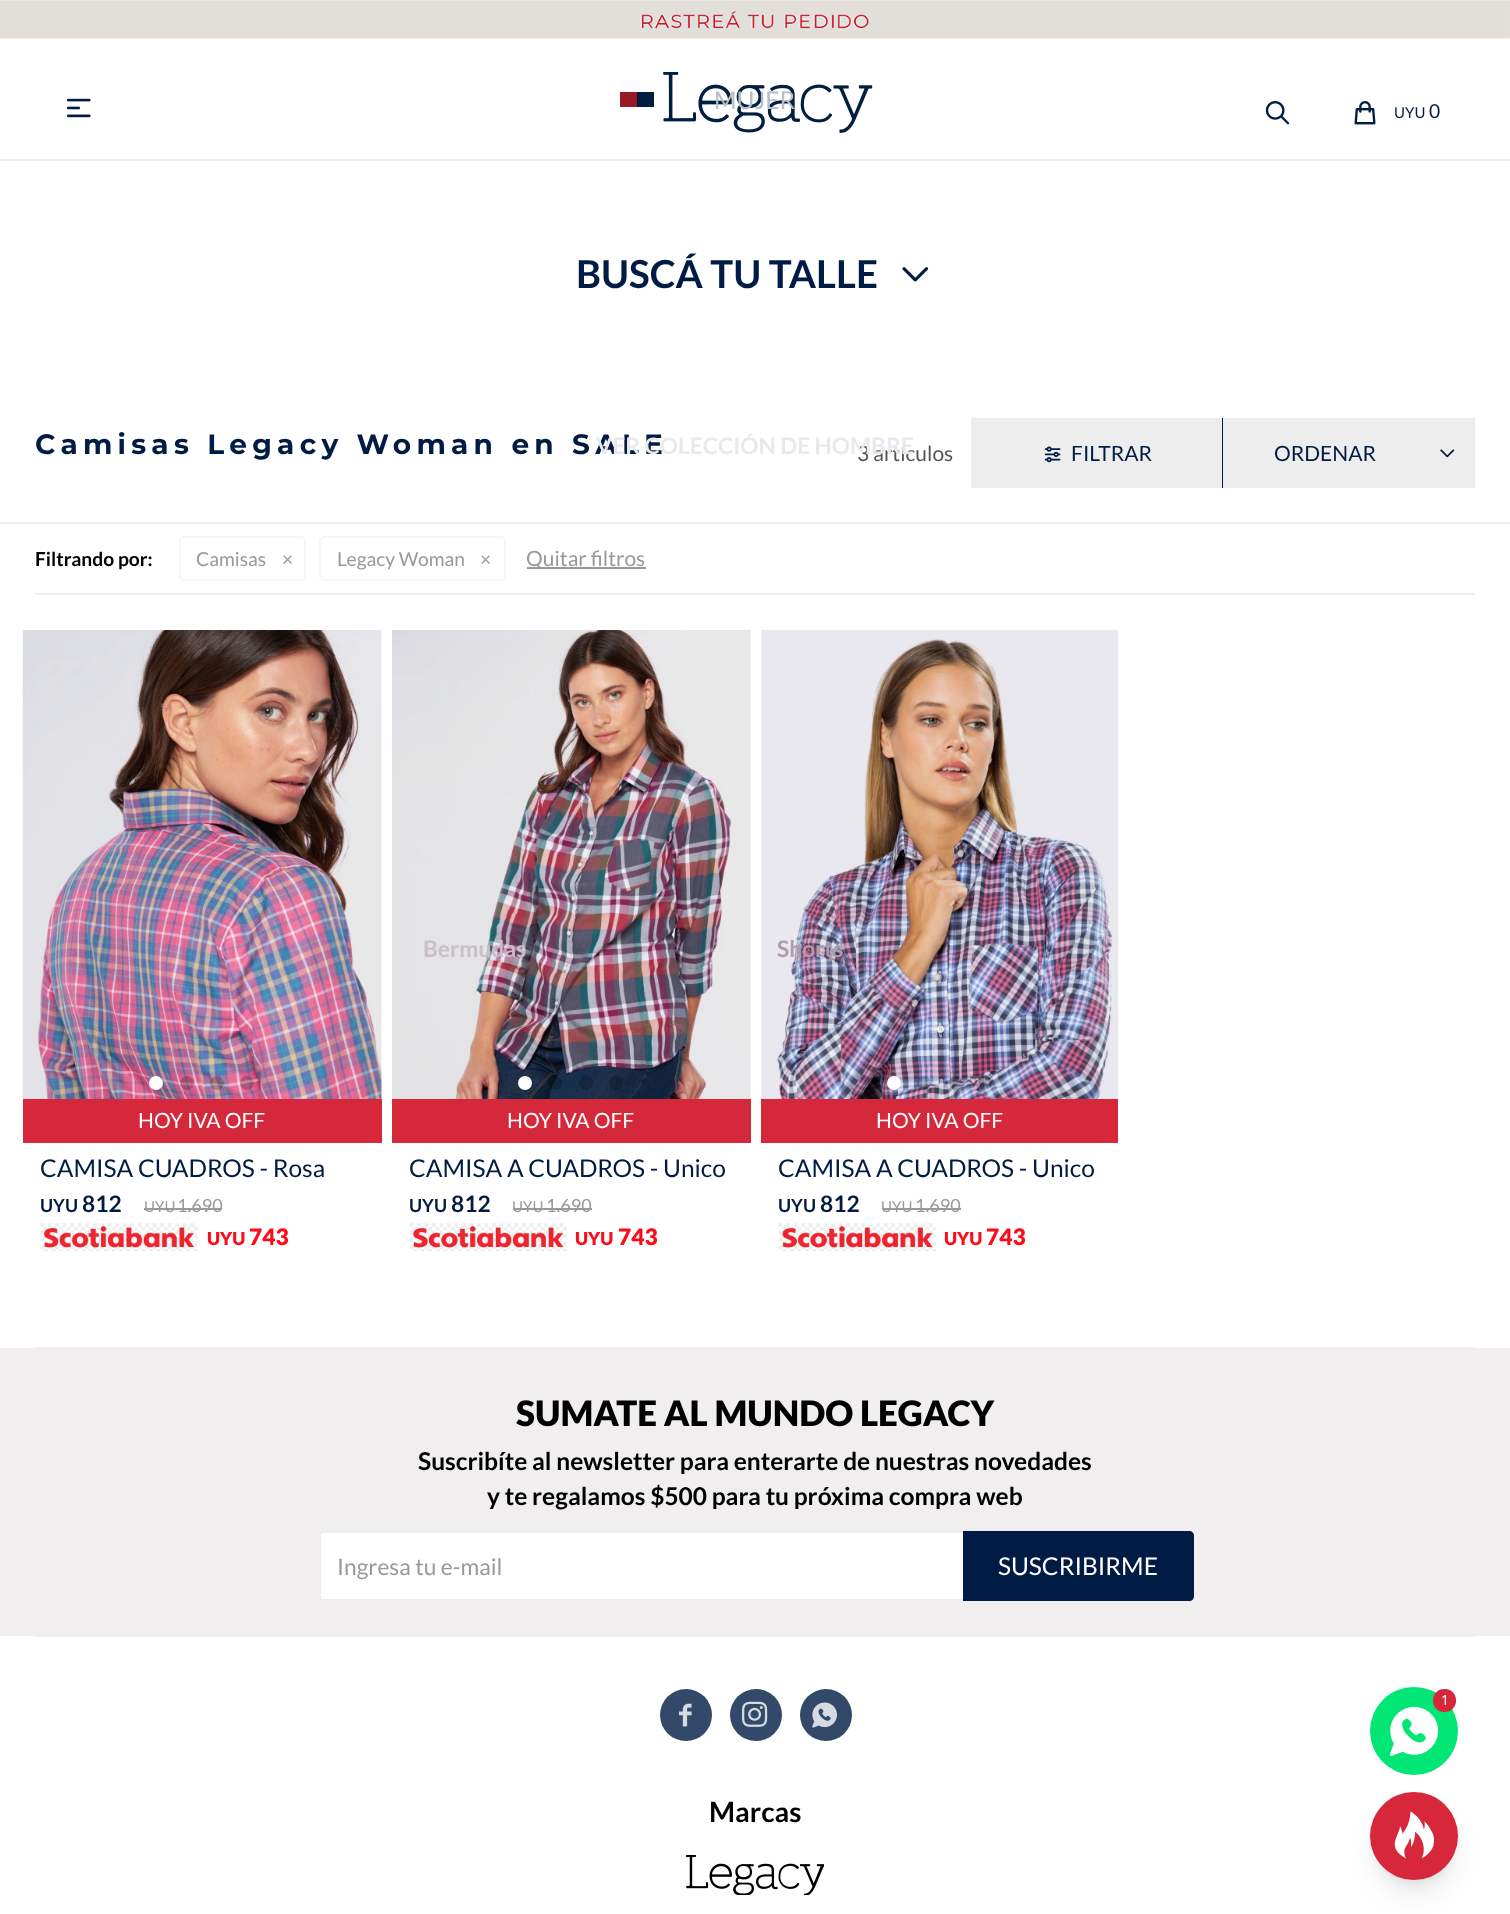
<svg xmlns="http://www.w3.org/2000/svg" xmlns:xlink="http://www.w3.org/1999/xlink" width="1510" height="1914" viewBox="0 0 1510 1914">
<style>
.cls-1{font:24.5px Lato;fill:#b5bec8}
.cls-2{font:bold 22.75px Lato;fill:#cabec8}
.cls-3{font:bold 22.75px Lato;fill:#ad9cb0}
.cls-4{font:15px Lato;fill:#001c44}
.cls-5{font:19.25px Lato;fill:#001c44}
.cls-6{font:bold 38.5px Lato;fill:#001c44}
.cls-7{font:bold 28px Montserrat;letter-spacing:5.25px;fill:#001c44}
.cls-8{font:21px Lato;fill:#555555}
.cls-9{font:bold 22.75px Lato;fill:#e7e9ec}
.cls-10{font:21px Lato;fill:#001c44}
.cls-11{font:bold 19.25px Lato;fill:#000000}
.cls-12{font:19.25px Lato;fill:#999999}
.cls-13{font:21px Lato;fill:#999999}
.cls-14{font:21px Lato;fill:#ffffff}
.cls-15{font:24.5px Lato;fill:#001c44}
.cls-16{font:bold 18px Lato;fill:#001c44}
.cls-17{font:bold 22.75px Lato;fill:#001c44}
.cls-18{font:15px Lato;fill:#999999}
.cls-19{font:18px Lato;fill:#999999}
.cls-20{font:900 18px Lato;fill:#ff0a19}
.cls-21{font:900 22.75px Lato;fill:#ff0a19}
.cls-22{font:900 35px Lato;fill:#000000}
.cls-23{font:bold 24.5px Lato;fill:#000000}
.cls-24{font:22.75px Lato;fill:#999999}
.cls-25{font:24.5px Lato;fill:#ffffff}
.cls-26{font:bold 28px Lato;fill:#000000}
.cls-27{font:14px Noto Sans;fill:#ffffff}
</style>
<rect width="100%" height="100%" fill="#ffffff"/>
<image xlink:href="image0.png" x="0" y="0" width="1510" height="39"/>
<image xlink:href="image1.png" x="67" y="98" width="24" height="20"/>
<image xlink:href="image2.png" x="620" y="72" width="253" height="61"/>
<image xlink:href="image3.png" x="1265" y="101" width="25" height="24"/>
<image xlink:href="image4.png" x="1354" y="101" width="22" height="24"/>
<rect fill="#ededed" x="0" y="159" width="1510" height="2"/>
<image xlink:href="image5.png" x="902" y="267" width="27" height="15"/>
<rect fill="#ededed" x="971" y="418" width="251" height="70"/>
<rect fill="#001c44" x="1222" y="418" width="1" height="70"/>
<image xlink:href="image6.png" x="1044" y="446" width="17" height="17"/>
<rect fill="#ededed" x="1223" y="418" width="252" height="70"/>
<image xlink:href="image7.png" x="1440" y="449" width="15" height="9"/>
<rect fill="#ededed" x="0" y="522" width="1510" height="2"/>
<rect fill="#ededed" x="35" y="593" width="1440" height="2"/>
<rect fill="none" stroke="#f6f6f6" stroke-width="2" x="180" y="537" width="125" height="43" rx="4"/>
<rect fill="none" stroke="#f6f6f6" stroke-width="2" x="320" y="537" width="185" height="43" rx="4"/>
<rect fill="#999999" x="527" y="567" width="119" height="2"/>
<image xlink:href="image8.png" x="22" y="630" width="360" height="469"/>
<circle fill="#ffffff" cx="156" cy="1083" r="7"/>
<circle fill="#000000" fill-opacity="0.2" cx="187" cy="1083" r="7"/>
<circle fill="#000000" fill-opacity="0.2" cx="217" cy="1083" r="7"/>
<circle fill="#000000" fill-opacity="0.2" cx="247" cy="1083" r="7"/>
<rect fill="#d6283b" x="23" y="1099" width="359" height="44"/>
<rect fill="#999999" x="144" y="1208" width="78" height="2"/>
<image xlink:href="image9.png" x="40" y="1223" width="158" height="29"/>
<image xlink:href="image10.png" x="392" y="630" width="359" height="469"/>
<circle fill="#ffffff" cx="525" cy="1083" r="7"/>
<circle fill="#000000" fill-opacity="0.2" cx="555" cy="1083" r="7"/>
<circle fill="#000000" fill-opacity="0.2" cx="586" cy="1083" r="7"/>
<circle fill="#000000" fill-opacity="0.2" cx="616" cy="1083" r="7"/>
<rect fill="#d6283b" x="392" y="1099" width="359" height="44"/>
<rect fill="#999999" x="513" y="1208" width="79" height="2"/>
<image xlink:href="image11.png" x="409" y="1223" width="158" height="29"/>
<image xlink:href="image12.png" x="761" y="630" width="358" height="469"/>
<circle fill="#ffffff" cx="894" cy="1083" r="7"/>
<circle fill="#000000" fill-opacity="0.2" cx="924" cy="1083" r="7"/>
<circle fill="#000000" fill-opacity="0.2" cx="956" cy="1083" r="7"/>
<circle fill="#000000" fill-opacity="0.2" cx="985" cy="1083" r="7"/>
<rect fill="#d6283b" x="761" y="1099" width="357" height="44"/>
<rect fill="#999999" x="882" y="1208" width="79" height="2"/>
<image xlink:href="image13.png" x="778" y="1223" width="159" height="29"/>
<rect fill="#f0eeef" x="0" y="1348" width="1510" height="288"/>
<rect fill="#f0eeef" x="35" y="1347" width="1440" height="290"/>
<rect fill="#ffffff" stroke="#ededed" stroke-width="2" x="320" y="1532" width="873" height="68" rx="4"/>
<path fill="#001c44" d="M963 1531H1189C1192 1531 1194 1533 1194 1536V1596C1194 1599 1192 1601 1189 1601H963Z"/>
<circle fill="#334969" cx="686" cy="1715" r="26"/>
<image xlink:href="image14.png" x="679" y="1703" width="13" height="24"/>
<circle fill="#334969" cx="756" cy="1715" r="26"/>
<image xlink:href="image15.png" x="742" y="1701" width="26" height="26"/>
<circle fill="#334969" cx="826" cy="1715" r="26"/>
<image xlink:href="image16.png" x="812" y="1702" width="25" height="26"/>
<image xlink:href="image17.png" x="686" y="1855" width="138" height="40"/>
<circle fill="#01e675" cx="1414" cy="1731" r="44"/>
<image xlink:href="image18.png" x="1389" y="1706" width="50" height="50"/>
<rect fill="#d6273b" x="1433" y="1689" width="23" height="23" rx="11"/>
<rect fill="#000000" fill-opacity="0.1" filter="blur(5px)" x="1377" y="1806" width="74" height="74" rx="37"/>
<rect fill="#000000" fill-opacity="0.1" filter="blur(13px)" x="1376" y="1815" width="77" height="77" rx="38.5"/>
<circle fill="#d6273b" cx="1414" cy="1836" r="44"/>
<image xlink:href="image19.png" x="1394" y="1811" width="40" height="48"/>
<text class="cls-1" x="714" y="109">MUJER</text>
<text class="cls-2" x="423" y="957">Bermudas</text>
<text class="cls-3" x="777" y="957">Shorts</text>
<text class="cls-4" x="1394" y="118">UYU</text>
<text class="cls-5" x="1429" y="118">0</text>
<text class="cls-6" x="576" y="288">BUSCÁ TU TALLE</text>
<text class="cls-7" x="35" y="454">Camisas Legacy Woman en SALE</text>
<text class="cls-8" x="857" y="461">3 artículos</text>
<text class="cls-9" x="596" y="454">VER COLECCIÓN DE HOMBRE</text>
<text class="cls-10" x="1071" y="461">FILTRAR</text>
<text class="cls-10" x="1274" y="461">ORDENAR</text>
<text class="cls-11" x="35" y="566">Filtrando por:</text>
<text class="cls-12" x="196" y="566">Camisas</text>
<text class="cls-12" x="282" y="566">×</text>
<text class="cls-12" x="337" y="566">Legacy Woman</text>
<text class="cls-12" x="480" y="566">×</text>
<text class="cls-13" x="526" y="566">Quitar filtros</text>
<text class="cls-14" x="138" y="1128">HOY IVA OFF</text>
<text class="cls-15" x="40" y="1177">CAMISA CUADROS - Rosa</text>
<text class="cls-16" x="40" y="1212">UYU</text>
<text class="cls-17" x="82" y="1212">812</text>
<text class="cls-18" x="144" y="1212">UYU</text>
<text class="cls-19" x="177" y="1212">1.690</text>
<text class="cls-20" x="207" y="1245">UYU</text>
<text class="cls-21" x="249" y="1245">743</text>
<text class="cls-14" x="507" y="1128">HOY IVA OFF</text>
<text class="cls-15" x="409" y="1177">CAMISA A CUADROS - Unico</text>
<text class="cls-16" x="409" y="1212">UYU</text>
<text class="cls-17" x="451" y="1212">812</text>
<text class="cls-18" x="512" y="1212">UYU</text>
<text class="cls-19" x="546" y="1212">1.690</text>
<text class="cls-20" x="575" y="1245">UYU</text>
<text class="cls-21" x="618" y="1245">743</text>
<text class="cls-14" x="876" y="1128">HOY IVA OFF</text>
<text class="cls-15" x="778" y="1177">CAMISA A CUADROS - Unico</text>
<text class="cls-16" x="778" y="1212">UYU</text>
<text class="cls-17" x="820" y="1212">812</text>
<text class="cls-18" x="881" y="1212">UYU</text>
<text class="cls-19" x="915" y="1212">1.690</text>
<text class="cls-20" x="944" y="1245">UYU</text>
<text class="cls-21" x="986" y="1245">743</text>
<text class="cls-22" x="516" y="1426">SUMATE AL MUNDO LEGACY</text>
<text class="cls-23" x="418" y="1470">Suscribíte al newsletter para enterarte de nuestras novedades</text>
<text class="cls-23" x="487" y="1505">y te regalamos $500 para tu próxima compra web</text>
<text class="cls-24" x="337" y="1575">Ingresa tu e-mail</text>
<text class="cls-25" x="998" y="1575">SUSCRIBIRME</text>
<text class="cls-26" x="709" y="1822">Marcas</text>
<text class="cls-27" x="1441" y="1705">1</text>
</svg>
